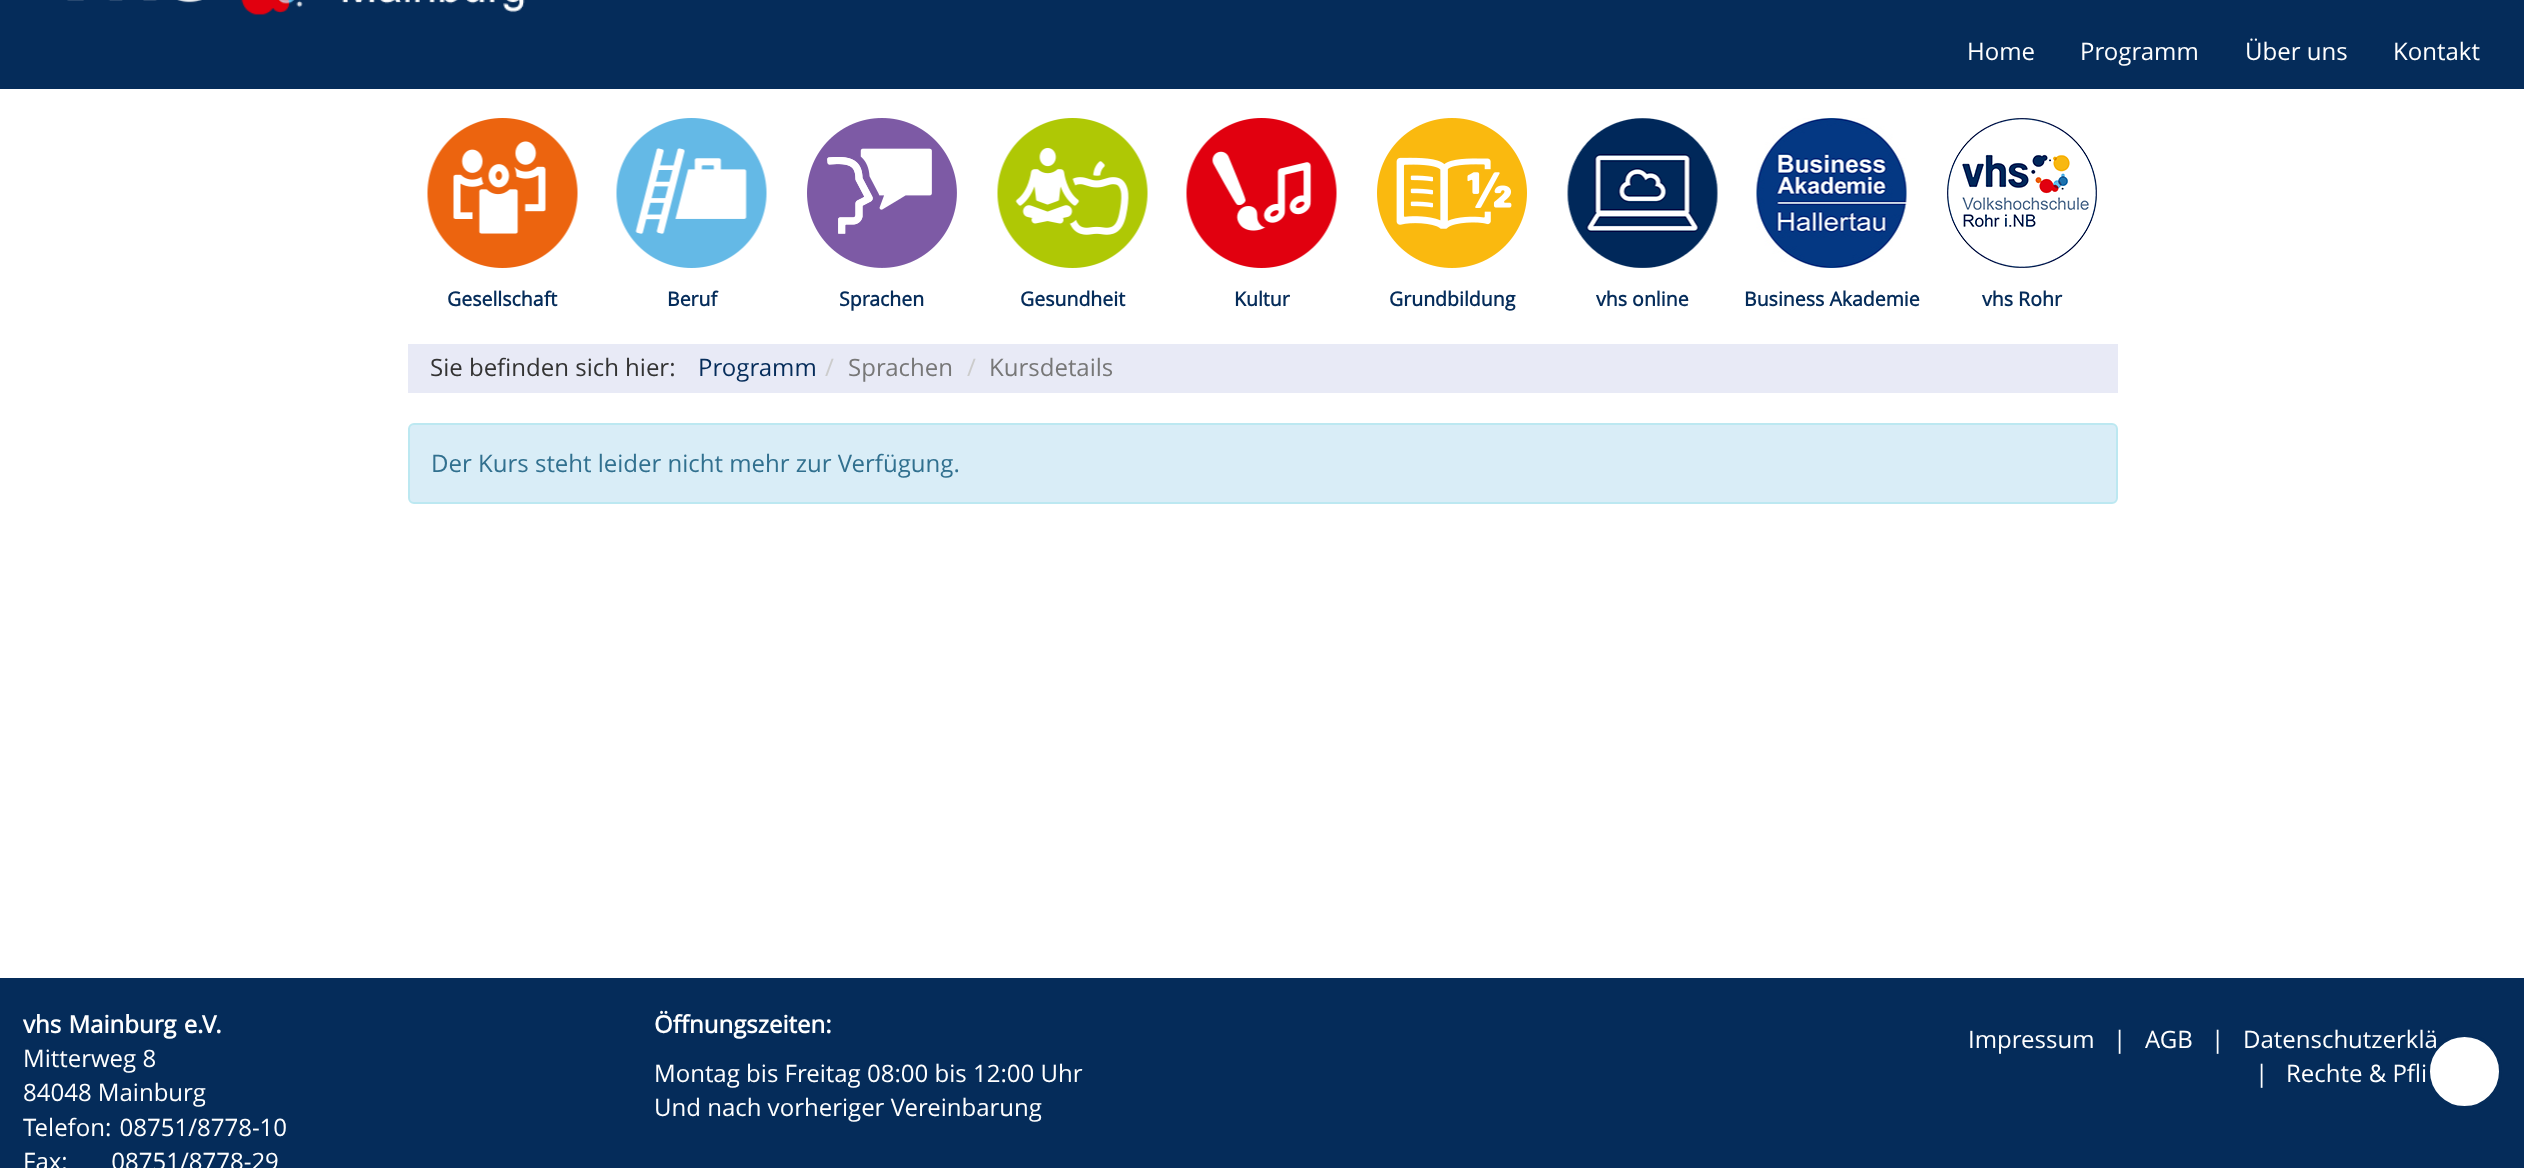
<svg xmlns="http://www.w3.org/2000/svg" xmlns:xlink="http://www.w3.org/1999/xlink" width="2524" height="1168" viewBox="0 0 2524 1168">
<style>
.cls-1{font:24px Open Sans;fill:#ffffff}
.cls-2{font:bold 19.5px Open Sans;fill:#052c5a}
.cls-3{font:24px Open Sans;fill:#333333}
.cls-4{font:24px Open Sans;fill:#052c5a}
.cls-5{font:24px Open Sans;fill:#cccccc}
.cls-6{font:24px Open Sans;fill:#777777}
.cls-7{font:24px Open Sans;fill:#31708f}
.cls-8{font:bold 24px Open Sans;fill:#ffffff}
</style>
<rect width="100%" height="100%" fill="#ffffff"/>
<rect fill="#052c5a" x="0" y="0" width="2524" height="89"/>
<image xlink:href="image0.png" x="67" y="0" width="458" height="15"/>
<image xlink:href="image1.png" x="427" y="118" width="151" height="150"/>
<image xlink:href="image2.png" x="616" y="118" width="151" height="150"/>
<image xlink:href="image3.png" x="807" y="118" width="150" height="150"/>
<image xlink:href="image4.png" x="997" y="118" width="151" height="150"/>
<image xlink:href="image5.png" x="1186" y="118" width="151" height="150"/>
<image xlink:href="image6.png" x="1377" y="118" width="150" height="150"/>
<image xlink:href="image7.png" x="1567" y="118" width="151" height="150"/>
<image xlink:href="image8.png" x="1756" y="118" width="151" height="150"/>
<image xlink:href="image9.png" x="1947" y="118" width="150" height="150"/>
<rect fill="#e8eaf6" x="408" y="344" width="1710" height="49"/>
<rect fill="#d9edf7" stroke="#bce8f1" stroke-width="2" x="409" y="424" width="1708" height="79" rx="5"/>
<rect fill="#052c5a" x="0" y="978" width="2524" height="190"/>
<circle fill="#ffffff" stroke="#052c5a" stroke-width="3" cx="2464.5" cy="1071.5" r="36"/>
<text class="cls-1" x="1967" y="60">Home</text>
<text class="cls-1" x="2080" y="60">Programm</text>
<text class="cls-1" x="2245" y="60">Über uns</text>
<text class="cls-1" x="2393" y="60">Kontakt</text>
<text class="cls-2" x="447" y="306">Gesellschaft</text>
<text class="cls-2" x="667" y="306">Beruf</text>
<text class="cls-2" x="839" y="306">Sprachen</text>
<text class="cls-2" x="1020" y="306">Gesundheit</text>
<text class="cls-2" x="1234" y="306">Kultur</text>
<text class="cls-2" x="1389" y="306">Grundbildung</text>
<text class="cls-2" x="1596" y="306">vhs online</text>
<text class="cls-2" x="1744" y="306">Business Akademie</text>
<text class="cls-2" x="1982" y="306">vhs Rohr</text>
<text class="cls-3" x="430" y="376">Sie befinden sich hier:</text>
<text class="cls-4" x="698" y="376">Programm</text>
<text class="cls-5" x="825" y="376">/</text>
<text class="cls-6" x="848" y="376">Sprachen</text>
<text class="cls-5" x="967" y="376">/</text>
<text class="cls-6" x="989" y="376">Kursdetails</text>
<text class="cls-7" x="431" y="472">Der Kurs steht leider nicht mehr zur Verfügung.</text>
<text class="cls-8" x="23" y="1033" word-spacing="1">vhs Mainburg e.V.</text>
<text class="cls-1" xml:space="preserve"><tspan x="23" y="1067">Mitterweg 8</tspan><tspan x="23" y="1101">84048 Mainburg</tspan><tspan x="23" y="1136" word-spacing="2">Telefon: 08751/8778-10</tspan><tspan x="23" y="1170">Fax:       08751/8778-29</tspan></text>
<text class="cls-8" x="654" y="1033">Öffnungszeiten:</text>
<text class="cls-1"><tspan x="654" y="1082">Montag bis Freitag 08:00 bis 12:00 Uhr</tspan><tspan x="654" y="1116">Und nach vorheriger Vereinbarung</tspan></text>
<text class="cls-1" x="1968" y="1048">Impressum</text>
<text class="cls-1" x="2113" y="1048">|</text>
<text class="cls-1" x="2145" y="1048">AGB</text>
<text class="cls-1" x="2211" y="1048">|</text>
<text class="cls-1" x="2243" y="1048">Datenschutzerklä</text>
<text class="cls-1" x="2255" y="1082">|</text>
<text class="cls-1" x="2286" y="1082">Rechte &amp; Pfli</text>
</svg>
